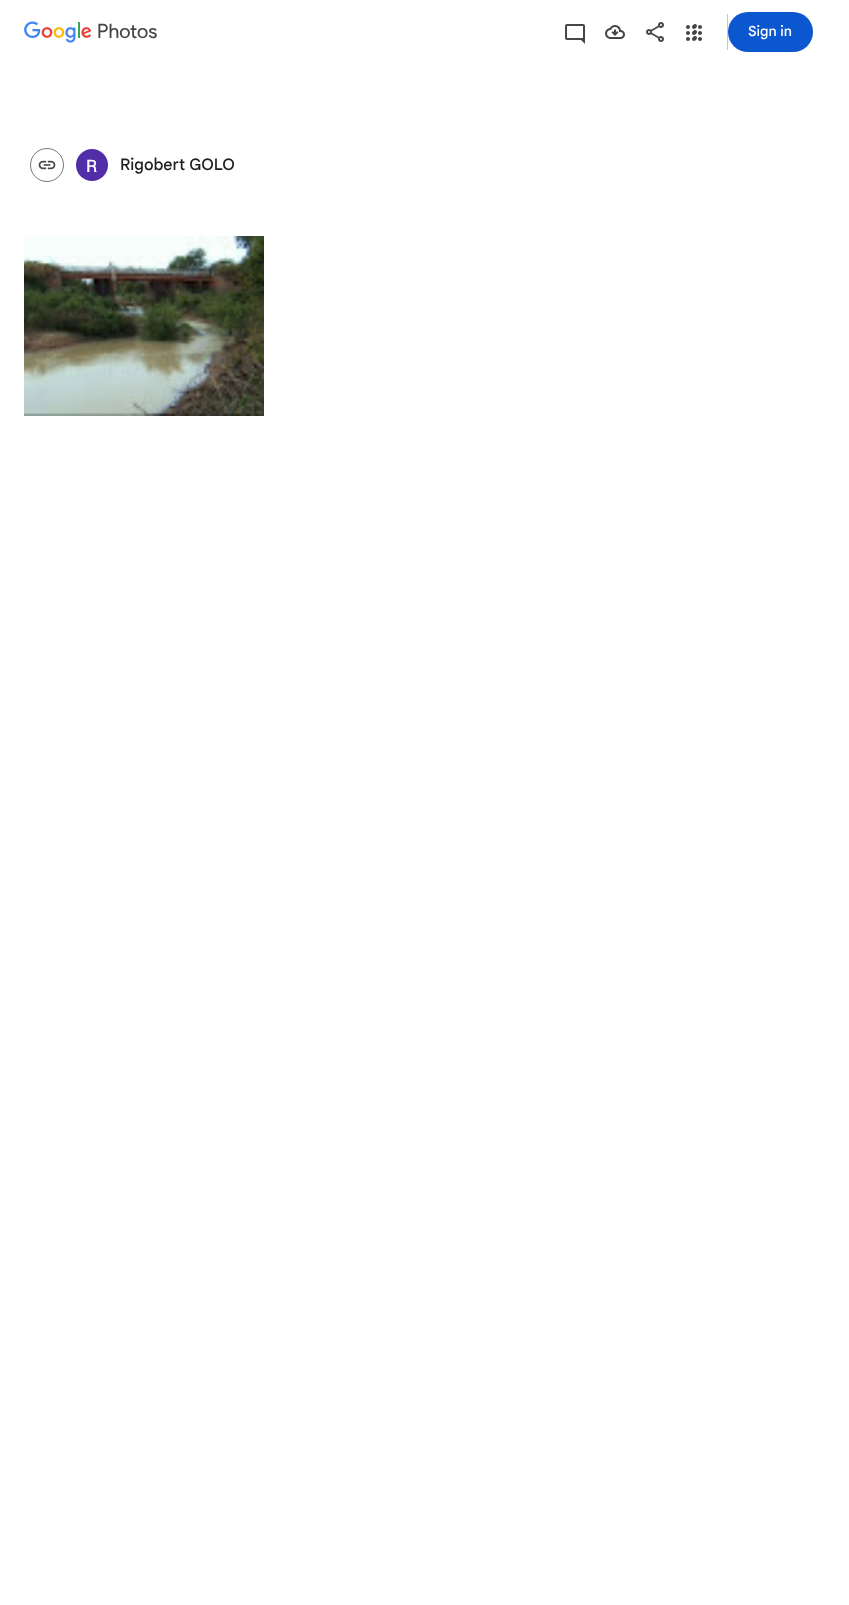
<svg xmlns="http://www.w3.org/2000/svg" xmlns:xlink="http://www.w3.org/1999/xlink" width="849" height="1605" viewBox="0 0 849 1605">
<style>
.cls-1{font:20px Product Sans;fill:#444746}
.cls-2{font:500 16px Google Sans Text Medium;fill:#1f1f1f}
.cls-3{font:500 14px Google Sans Text Medium;fill:#ffffff}
</style>
<rect width="100%" height="100%" fill="#ffffff"/>
<image xlink:href="image0.png" x="24" y="21" width="68" height="22"/>
<image xlink:href="image1.png" x="565" y="24" width="20" height="20"/>
<image xlink:href="image2.png" x="605" y="25" width="20" height="14"/>
<image xlink:href="image3.png" x="646" y="22" width="18" height="20"/>
<image xlink:href="image4.png" x="693" y="24" width="4" height="16"/>
<rect fill="#c4c7c5" x="727" y="14" width="1" height="36"/>
<circle fill="none" stroke="#747775" cx="47" cy="165" r="16.5"/>
<image xlink:href="image5.png" x="38" y="160" width="18" height="10"/>
<image xlink:href="image6.png" x="76" y="149" width="32" height="32"/>
<image xlink:href="image7.png" x="24" y="236" width="240" height="180"/>
<image xlink:href="image8.png" x="686" y="25" width="16" height="16"/>
<rect fill="#0b57d0" x="728" y="12" width="85" height="40" rx="20"/>
<text class="cls-1" x="97" y="38">Photos</text>
<text class="cls-2" x="120" y="170">Rigobert GOLO</text>
<text class="cls-3" x="748" y="36">Sign in</text>
</svg>
